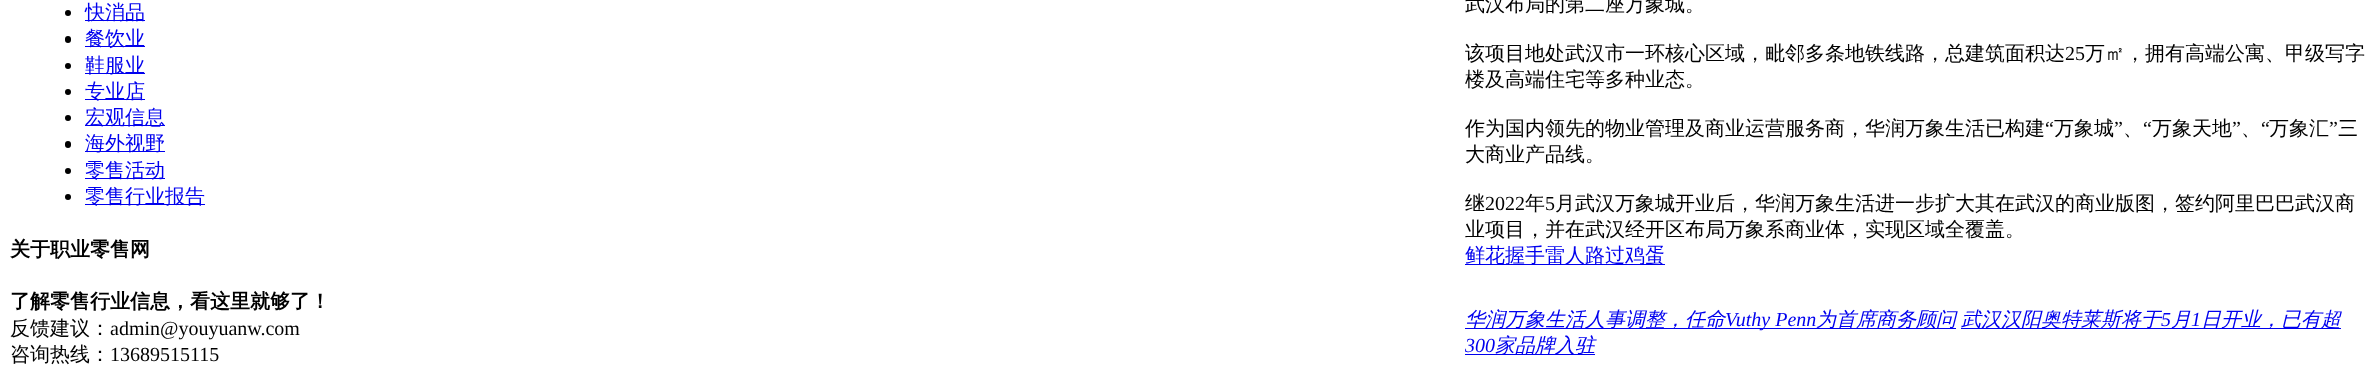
<svg xmlns="http://www.w3.org/2000/svg" xmlns:xlink="http://www.w3.org/1999/xlink" width="2380" height="371" viewBox="0 0 2380 371">
<style>
.cls-1{font:500 20px WenQuanYi Zen Hei;fill:#0000ee}
.cls-2{font:500 20px WenQuanYi Zen Hei;fill:#000000}
.cls-3{font:20px Liberation Serif;fill:#000000}
.cls-4{font:italic 500 20px WenQuanYi Zen Hei;fill:#0000ee}
.cls-5{font:italic 20px Liberation Serif;fill:#0000ee}
.cls-6{font:bold 20px WenQuanYi Zen Hei;fill:#000000}
</style>
<rect width="100%" height="100%" fill="#ffffff"/>
<circle fill="#000000" cx="68" cy="13" r="3"/>
<rect fill="#0000ee" x="85" y="20" width="60" height="1"/>
<rect fill="#000000" x="65" y="36" width="6" height="7" rx="3"/>
<rect fill="#0000ee" x="85" y="46" width="60" height="1"/>
<circle fill="#000000" cx="68" cy="66" r="3"/>
<rect fill="#0000ee" x="85" y="73" width="60" height="1"/>
<circle fill="#000000" cx="68" cy="92" r="3"/>
<rect fill="#0000ee" x="85" y="99" width="60" height="1"/>
<circle fill="#000000" cx="68" cy="118" r="3"/>
<rect fill="#0000ee" x="85" y="125" width="80" height="1"/>
<rect fill="#000000" x="65" y="141" width="6" height="7" rx="3"/>
<rect fill="#0000ee" x="85" y="151" width="80" height="1"/>
<circle fill="#000000" cx="68" cy="171" r="3"/>
<rect fill="#0000ee" x="85" y="178" width="80" height="1"/>
<circle fill="#000000" cx="68" cy="197" r="3"/>
<rect fill="#0000ee" x="85" y="204" width="120" height="1"/>
<rect fill="#0000ee" x="1465" y="264" width="200" height="1"/>
<rect fill="#0000ee" x="1465" y="328" width="491" height="1"/>
<rect fill="#0000ee" x="1961" y="328" width="380" height="1"/>
<rect fill="#0000ee" x="1465" y="354" width="130" height="1"/>
<text class="cls-1"><tspan x="85" y="19">快消品</tspan><tspan x="85" y="45">餐饮业</tspan><tspan x="85" y="72">鞋服业</tspan><tspan x="85" y="98">专业店</tspan><tspan x="85" y="124">宏观信息</tspan><tspan x="85" y="150">海外视野</tspan><tspan x="85" y="177">零售活动</tspan><tspan x="85" y="203">零售行业报告</tspan></text>
<text class="cls-2" x="1465" y="11">武汉布局的第二座万象城。</text>
<text class="cls-2" x="1465" y="60">该项目地处武汉市一环核心区域，毗邻多条地铁线路，总建筑面积达</text>
<text class="cls-3" x="2065" y="60">25</text>
<text class="cls-2" x="2085" y="60">万㎡，拥有高端公寓、甲级写字</text>
<text class="cls-2" x="1465" y="86">楼及高端住宅等多种业态。</text>
<text class="cls-2" x="1465" y="135">作为国内领先的物业管理及商业运营服务商，华润万象生活已构建</text>
<text class="cls-3" x="2045" y="135">“</text>
<text class="cls-2" x="2054" y="135">万象城</text>
<text class="cls-3" x="2114" y="135">”</text>
<text class="cls-3" x="2143" y="135">“</text>
<text class="cls-2" x="2152" y="135">万象天地</text>
<text class="cls-3" x="2232" y="135">”</text>
<text class="cls-3" x="2261" y="135">“</text>
<text class="cls-2" x="2269" y="135">万象汇</text>
<text class="cls-3" x="2329" y="135">”</text>
<text class="cls-2" x="2338" y="135">三</text>
<text class="cls-2" x="2123" y="135">、</text>
<text class="cls-2" x="2241" y="135">、</text>
<text class="cls-2" x="1465" y="161">大商业产品线。</text>
<text class="cls-2" x="1465" y="210">继</text>
<text class="cls-3" x="1485" y="210">2022</text>
<text class="cls-2" x="1525" y="210">年</text>
<text class="cls-3" x="1545" y="210">5</text>
<text class="cls-2" x="1555" y="210">月武汉万象城开业后，华润万象生活进一步扩大其在武汉的商业版图，签约阿里巴巴武汉商</text>
<text class="cls-2" x="1465" y="236">业项目，并在武汉经开区布局万象系商业体，实现区域全覆盖。</text>
<text class="cls-1" x="1465" y="262">鲜花握手雷人路过鸡蛋</text>
<text class="cls-4" x="1465" y="326">华润万象生活人事调整，任命</text>
<text class="cls-5" x="1725" y="326">Vuthy Penn</text>
<text class="cls-4" x="1816" y="326">为首席商务顾问</text>
<text class="cls-4" x="1961" y="326">武汉汉阳奥特莱斯将于</text>
<text class="cls-5" x="2161" y="326">5</text>
<text class="cls-4" x="2171" y="326">月</text>
<text class="cls-5" x="2191" y="326">1</text>
<text class="cls-4" x="2201" y="326">日开业，已有超</text>
<text class="cls-5" x="1465" y="352">300</text>
<text class="cls-4" x="1495" y="352">家品牌入驻</text>
<text class="cls-6" x="10" y="256">关于职业零售网</text>
<text class="cls-6" x="10" y="308">了解零售行业信息，看这里就够了！</text>
<text class="cls-2" x="10" y="335">反馈建议：</text>
<text class="cls-3" x="110" y="335">admin@youyuanw.com</text>
<text class="cls-2" x="10" y="361">咨询热线：</text>
<text class="cls-3" x="110" y="361">13689515115</text>
</svg>
